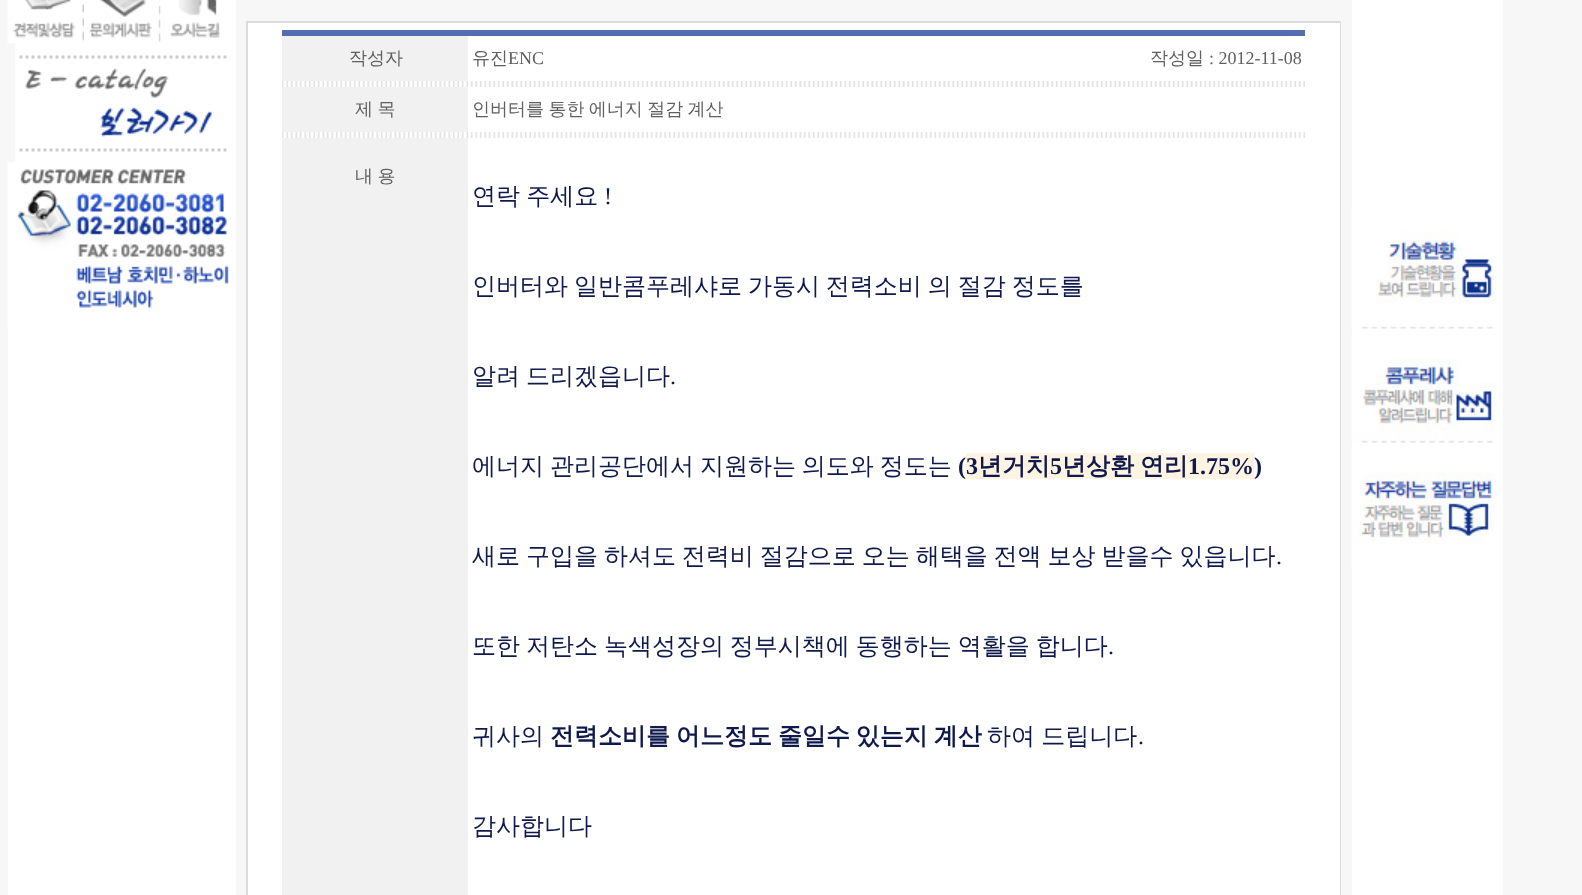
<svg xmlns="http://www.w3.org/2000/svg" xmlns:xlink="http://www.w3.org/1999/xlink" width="1582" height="895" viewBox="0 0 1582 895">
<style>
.cls-1{font:500 18px WenQuanYi Zen Hei;fill:#606060}
.cls-2{font:18px Liberation Serif;fill:#606060}
.cls-3{font:500 24px WenQuanYi Zen Hei;fill:#0f194c}
.cls-4{font:24px Liberation Serif;fill:#0f194c}
.cls-5{font:bold 24px Liberation Serif;fill:#0f194c}
.cls-6{font:bold 24px WenQuanYi Zen Hei;fill:#0f194c}
</style>
<rect width="100%" height="100%" fill="#ffffff"/>
<rect fill="#f7f7f7" x="0" y="0" width="8" height="895"/>
<image xlink:href="image0.png" x="7" y="0" width="77" height="43"/>
<image xlink:href="image1.png" x="89" y="0" width="72" height="43"/>
<image xlink:href="image2.png" x="160" y="0" width="60" height="42"/>
<image xlink:href="image3.png" x="8" y="43" width="219" height="119"/>
<image xlink:href="image4.png" x="7" y="162" width="222" height="163"/>
<rect fill="#f7f7f7" x="236" y="0" width="1116" height="895"/>
<rect fill="#dbdbdb" x="246" y="21" width="1095" height="874"/>
<rect fill="#ffffff" x="248" y="23" width="1092" height="872"/>
<rect fill="#546cb0" x="282" y="30" width="1023" height="6"/>
<rect fill="#f1f1f1" x="282" y="36" width="186" height="45"/>
<image xlink:href="image5.png" x="282" y="81" width="1023" height="6"/>
<rect fill="#f1f1f1" x="282" y="87" width="186" height="45"/>
<image xlink:href="image5.png" x="282" y="132" width="1023" height="6"/>
<rect fill="#f1f1f1" x="282" y="138" width="186" height="757"/>
<rect fill="#fff4e2" x="966" y="453" width="288" height="26"/>
<image xlink:href="image6.png" x="1351" y="207" width="145" height="122"/>
<image xlink:href="image7.png" x="1351" y="335" width="145" height="108"/>
<image xlink:href="image8.png" x="1351" y="449" width="145" height="121"/>
<rect fill="#f7f7f7" x="1503" y="0" width="79" height="895"/>
<text class="cls-1" x="349" y="64">작성자</text>
<text class="cls-1" x="472" y="64">유진</text>
<text class="cls-2" x="508" y="64">ENC</text>
<text class="cls-1" x="1150" y="64">작성일</text>
<text class="cls-2" x="1209" y="64">: 2012-11-08</text>
<text class="cls-1" x="355" y="115" word-spacing="-1">제 목</text>
<text class="cls-1" x="472" y="115" word-spacing="-1">인버터를 통한 에너지 절감 계산</text>
<text class="cls-1" x="355" y="182" word-spacing="-1">내 용</text>
<text class="cls-3" x="472" y="204" word-spacing="-1">연락 주세요</text>
<text class="cls-4" x="604" y="204">!</text>
<text class="cls-3" x="472" y="294" word-spacing="-1.25">인버터와 일반콤푸레샤로 가동시 전력소비 의 절감 정도를</text>
<text class="cls-3" x="472" y="384" word-spacing="-1.25">알려 드리겠읍니다</text>
<text class="cls-4" x="670" y="384">.</text>
<text class="cls-3" x="472" y="474" word-spacing="-1.25">에너지 관리공단에서 지원하는 의도와 정도는</text>
<text class="cls-5" x="958" y="474">(</text>
<text class="cls-5" x="966" y="474">3</text>
<text class="cls-6" x="978" y="474">년거치</text>
<text class="cls-5" x="1050" y="474">5</text>
<text class="cls-6" x="1062" y="474" word-spacing="-1.25">년상환 연리</text>
<text class="cls-5" x="1188" y="474">1.75%)</text>
<text class="cls-3" x="472" y="564" word-spacing="-1.25">새로 구입을 하셔도 전력비 절감으로 오는 해택을 전액 보상 받을수 있읍니다</text>
<text class="cls-4" x="1276" y="564">.</text>
<text class="cls-3" x="472" y="654" word-spacing="-1.25">또한 저탄소 녹색성장의 정부시책에 동행하는 역활을 합니다</text>
<text class="cls-4" x="1108" y="654">.</text>
<text class="cls-3" x="472" y="744">귀사의</text>
<text class="cls-6" x="550" y="744" word-spacing="-1.25">전력소비를 어느정도 줄일수 있는지 계산</text>
<text class="cls-3" x="987" y="744" word-spacing="-1">하여 드립니다</text>
<text class="cls-4" x="1138" y="744">.</text>
<text class="cls-3" x="472" y="834">감사합니다</text>
</svg>
